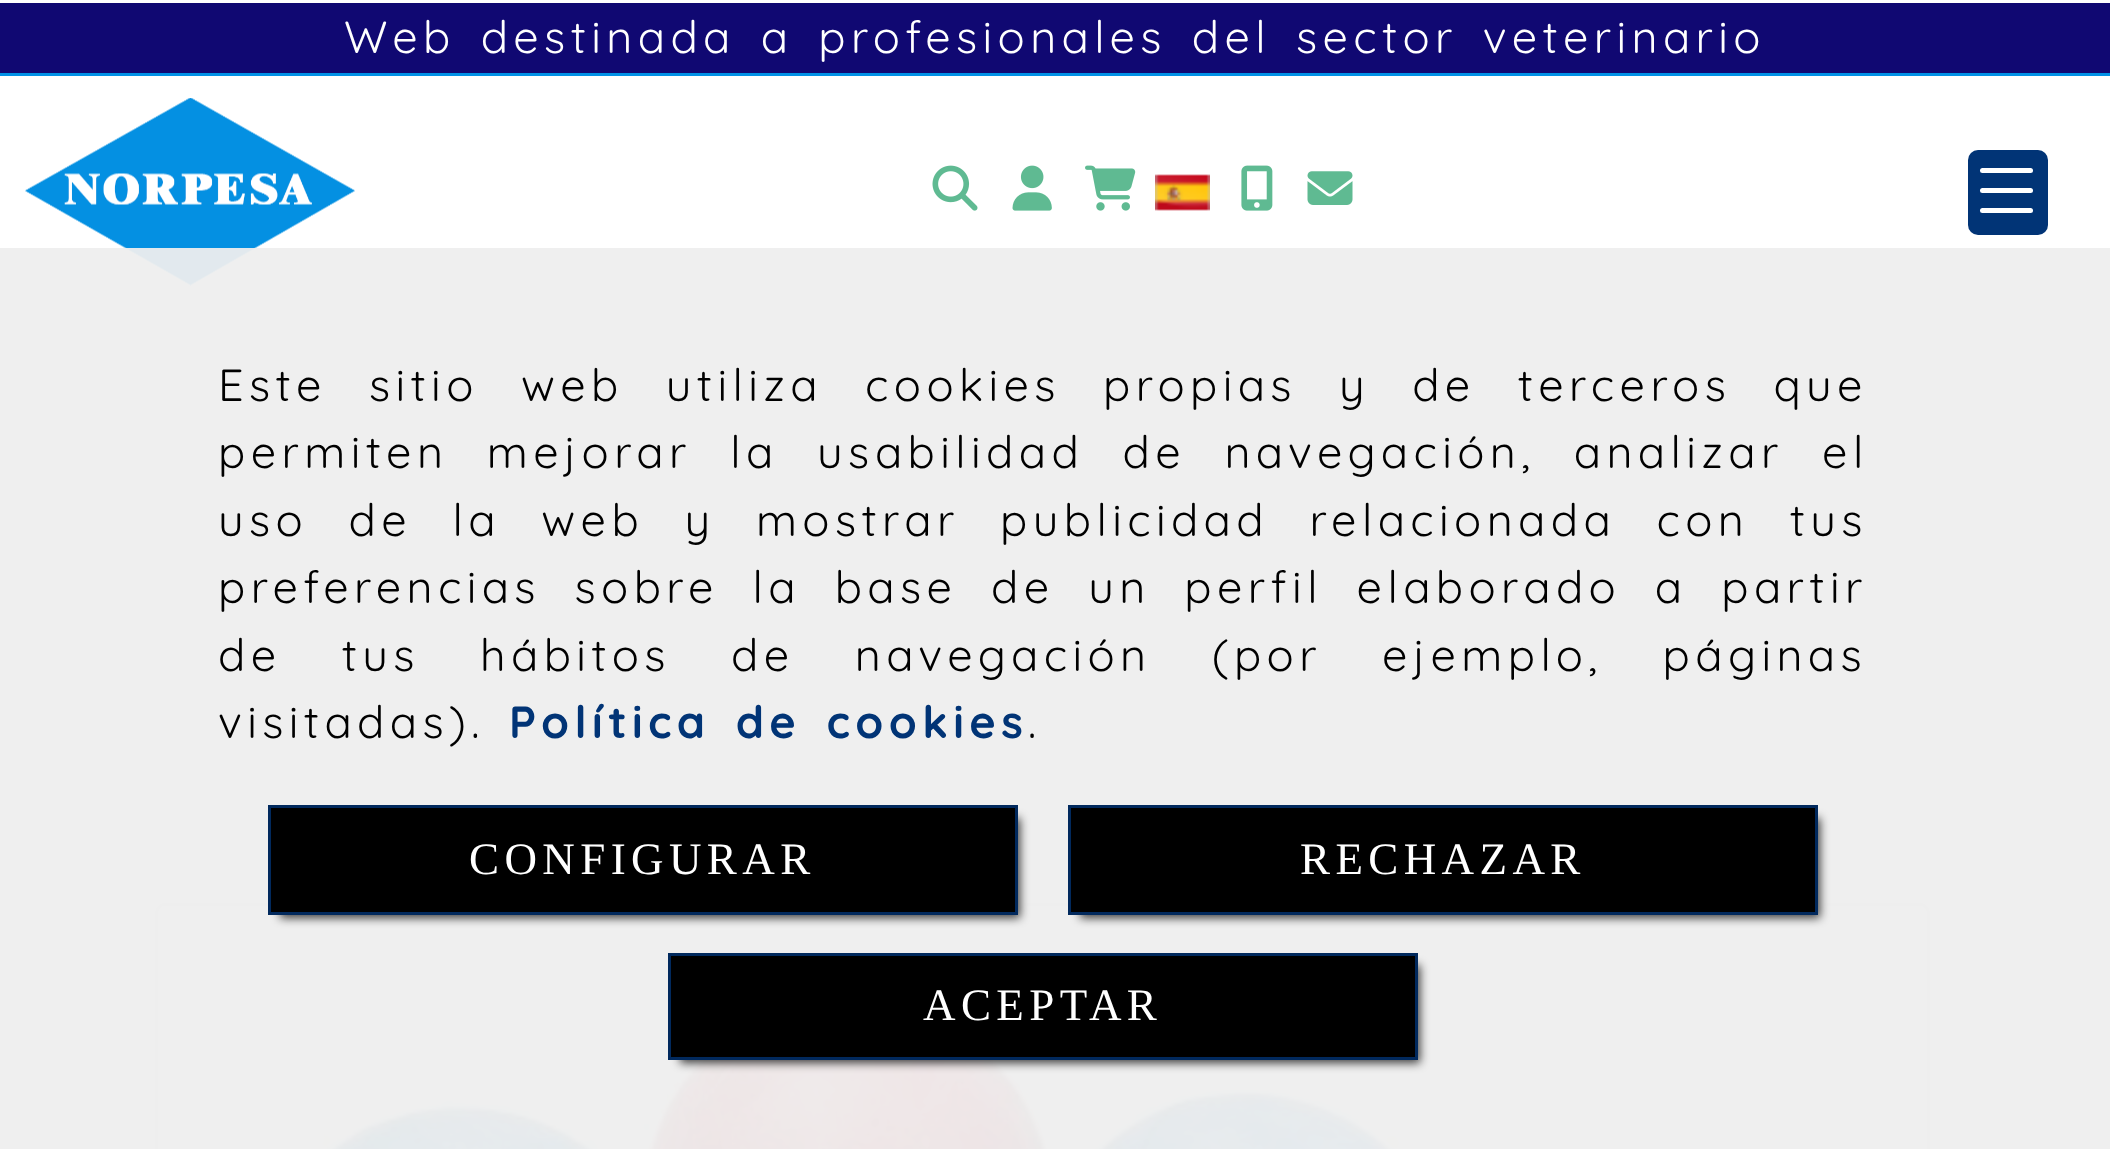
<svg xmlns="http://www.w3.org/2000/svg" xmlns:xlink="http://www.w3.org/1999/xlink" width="2110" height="1149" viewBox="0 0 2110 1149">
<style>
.cls-1{font:45px Quicksand;letter-spacing:5.4px;fill:#ffffff}
.cls-2{font:45px Quicksand;letter-spacing:5.4px;fill:#000000}
.cls-3{font:bold 45px Quicksand;letter-spacing:5.4px;fill:#013476}
.cls-4{font:45px Liberation Serif;letter-spacing:5.4px;fill:#ffffff}
</style>
<rect width="100%" height="100%" fill="#ffffff"/>
<rect fill="#000000" fill-opacity="0.08" filter="blur(12.5px)" x="0" y="80" width="2110" height="238"/>
<rect fill="#0091e6" x="0" y="73" width="2110" height="3"/>
<rect fill="#100872" x="0" y="3" width="2110" height="70"/>
<rect fill="#ffffff" x="0" y="76" width="2110" height="234"/>
<image xlink:href="image0.png" x="25" y="98" width="330" height="188"/>
<image xlink:href="image1.png" x="932" y="165" width="46" height="46"/>
<image xlink:href="image2.png" x="1012" y="165" width="40" height="46"/>
<image xlink:href="image3.png" x="1085" y="165" width="51" height="46"/>
<image xlink:href="image4.png" x="1155" y="174" width="55" height="37"/>
<image xlink:href="image5.png" x="1241" y="165" width="32" height="46"/>
<image xlink:href="image6.png" x="1307" y="171" width="46" height="34"/>
<rect fill="#013476" x="1968" y="150" width="80" height="85" rx="10"/>
<rect fill="#ffffff" x="1980" y="188" width="53" height="5" rx="2.5"/>
<rect fill="#ffffff" x="1980" y="168" width="53" height="5" rx="2.5"/>
<rect fill="#ffffff" x="1980" y="208" width="53" height="5" rx="2.5"/>
<rect fill="none" stroke="#dddddd" stroke-width="3" x="156.5" y="904.5" width="1772" height="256" rx="8.5"/>
<image xlink:href="image7.png" x="271" y="965" width="1144" height="184"/>
<rect fill="#eeeeee" fill-opacity="0.95" x="0" y="248" width="2110" height="901"/>
<rect fill="#000000" fill-opacity="0.75" filter="blur(5px)" x="280" y="818" width="740" height="100"/>
<rect fill="#000000" stroke="#01295d" stroke-width="3" x="269.5" y="806.5" width="747" height="107"/>
<rect fill="#000000" fill-opacity="0.75" filter="blur(5px)" x="1080" y="818" width="740" height="100"/>
<rect fill="#000000" stroke="#01295d" stroke-width="3" x="1069.5" y="806.5" width="747" height="107"/>
<rect fill="#000000" fill-opacity="0.75" filter="blur(5px)" x="680" y="965" width="740" height="98"/>
<rect fill="#000000" stroke="#01295d" stroke-width="3" x="669.5" y="954.5" width="747" height="104"/>
<text class="cls-1" x="344" y="53" word-spacing="7.25">Web destinada a profesionales del sector veterinario</text>
<text class="cls-2"><tspan x="218" y="401" word-spacing="24.5">Este sitio web utiliza cookies propias y de terceros que</tspan><tspan x="218" y="468" word-spacing="20.75">permiten mejorar la usabilidad de navegación, analizar el</tspan><tspan x="218" y="536" word-spacing="22.75">uso de la web y mostrar publicidad relacionada con tus</tspan><tspan x="218" y="603" word-spacing="16">preferencias sobre la base de un perfil elaborado a partir</tspan><tspan x="218" y="671" word-spacing="42.5">de tus hábitos de navegación (por ejemplo, páginas</tspan><tspan x="218" y="738">visitadas).</tspan></text>
<text class="cls-3" x="509" y="738" word-spacing="7.25">Política de cookies</text>
<text class="cls-2" x="1028" y="738">.</text>
<text class="cls-4" x="469" y="874">CONFIGURAR</text>
<text class="cls-4" x="1300" y="874">RECHAZAR</text>
<text class="cls-4" x="923" y="1020">ACEPTAR</text>
</svg>
